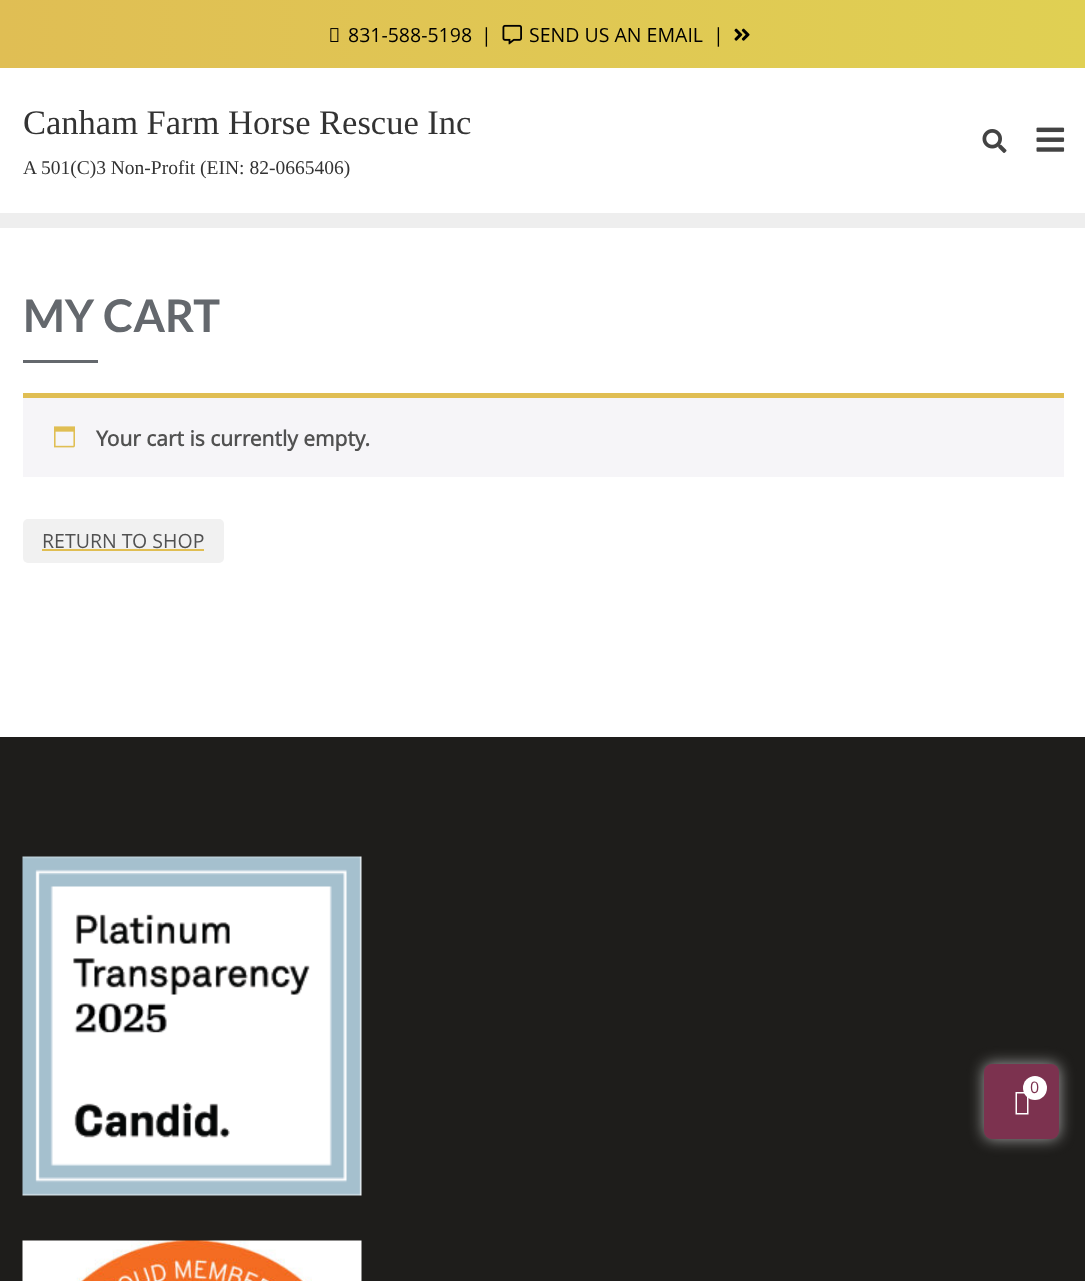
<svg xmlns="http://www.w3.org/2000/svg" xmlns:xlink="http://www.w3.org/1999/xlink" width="1085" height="1281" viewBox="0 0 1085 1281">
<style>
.cls-1{font:19.5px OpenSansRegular;fill:#000000}
.cls-2{font:34.5px Liberation Serif;fill:#333333}
.cls-3{font:19.5px Liberation Serif;fill:#333333}
.cls-4{font:bold 45px Lato;fill:#64686d}
.cls-5{font:bold 21px OpenSansRegular;fill:#515151}
.cls-6{font:19.5px OpenSansRegular;fill:#515151}
.cls-7{font:16px OpenSansRegular;fill:#7c324f}
</style>
<defs>
<linearGradient id="g1" gradientUnits="userSpaceOnUse" x1="0" y1="34" x2="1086" y2="34"><stop offset="0" stop-color="#e0be54"/><stop offset="1" stop-color="#e0d053"/></linearGradient>
</defs>
<rect width="100%" height="100%" fill="#ffffff"/>
<rect fill="#eeeeee" x="0" y="213" width="1085" height="15"/>
<rect fill="url(#g1)" x="0" y="0" width="1085" height="68"/>
<image xlink:href="image0.png" x="330" y="28" width="9" height="14"/>
<image xlink:href="image1.png" x="502" y="24" width="20" height="21"/>
<image xlink:href="image2.png" x="734" y="28" width="16" height="13"/>
<image xlink:href="image3.png" x="982" y="129" width="25" height="24"/>
<image xlink:href="image4.png" x="1036" y="127" width="29" height="25"/>
<rect fill="#64686d" x="23" y="360" width="75" height="3"/>
<rect fill="#f6f5f8" x="23" y="398" width="1041" height="79"/>
<rect fill="#e0be53" x="23" y="393" width="1041" height="5"/>
<image xlink:href="image5.png" x="54" y="426" width="21" height="22"/>
<rect fill="#f1f1f1" x="23" y="519" width="201" height="44" rx="5"/>
<rect fill="#e0be53" x="42" y="549" width="162" height="2"/>
<rect fill="#1e1d1b" x="0" y="737" width="1085" height="544"/>
<image xlink:href="image6.png" x="22" y="856" width="340" height="340"/>
<image xlink:href="image7.png" x="22" y="1240" width="340" height="41"/>
<rect fill="#cccccc" fill-opacity="0.78" filter="blur(7.5px)" x="984" y="1064" width="75" height="75" rx="8"/>
<rect fill="#7c324f" x="984" y="1064" width="75" height="75" rx="8"/>
<path fill="#ffffff" d="M1015.5 1092H1028.5V1114.5H1015.5ZM1017 1113H1027V1093.5H1017Z"/>
<circle fill="#ffffff" cx="1035" cy="1088" r="12"/>
<text class="cls-1" x="348" y="42">831-588-5198</text>
<text class="cls-1" x="481" y="42">|</text>
<text class="cls-1" x="529" y="42">SEND US AN EMAIL</text>
<text class="cls-1" x="713" y="42">|</text>
<text class="cls-2" x="23" y="134">Canham Farm Horse Rescue Inc</text>
<text class="cls-3" x="23" y="174">A 501(C)3 Non-Profit (EIN: 82-0665406)</text>
<text class="cls-4" x="23" y="332">MY CART</text>
<text class="cls-5" x="96" y="446">Your cart is currently empty.</text>
<text class="cls-6" x="42" y="548">RETURN TO SHOP</text>
<text class="cls-7" x="1030" y="1093">0</text>
</svg>
